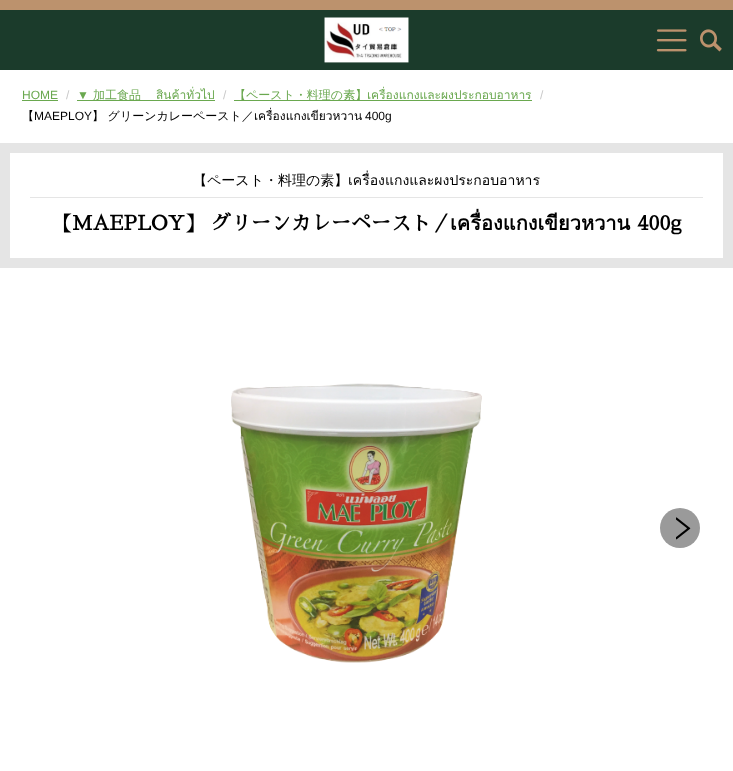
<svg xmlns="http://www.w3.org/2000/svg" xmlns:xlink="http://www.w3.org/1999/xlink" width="733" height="771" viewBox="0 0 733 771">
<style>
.cls-1{font:12px Liberation Sans;fill:#6aa84f}
.cls-2{font:12px Liberation Sans;fill:#c9c9c9}
.cls-3{font:500 12px WenQuanYi Zen Hei;fill:#6aa84f}
.cls-4{font:12px Loma;fill:#6aa84f}
.cls-5{font:500 12px WenQuanYi Zen Hei;fill:#000000}
.cls-6{font:12px Liberation Sans;fill:#000000}
.cls-7{font:12px Loma;fill:#000000}
.cls-8{font:500 14px WenQuanYi Zen Hei;fill:#000000}
.cls-9{font:14px Loma;fill:#000000}
.cls-10{font:bold 20px Sawarabi Mincho;fill:#000000}
.cls-11{font:bold 20px Loma;fill:#000000}
</style>
<rect width="100%" height="100%" fill="#ffffff"/>
<rect fill="#1b3b2b" x="0" y="10" width="733" height="60"/>
<rect fill="#bc926d" x="0" y="0" width="733" height="10"/>
<image xlink:href="image0.png" x="324" y="17" width="85" height="46"/>
<image xlink:href="image1.png" x="656" y="29" width="31" height="23"/>
<image xlink:href="image2.png" x="700" y="29" width="22" height="23"/>
<rect fill="#6aa84f" x="22" y="100" width="36" height="1"/>
<rect fill="#6aa84f" x="77" y="100" width="138" height="1"/>
<rect fill="#6aa84f" x="234" y="100" width="298" height="1"/>
<rect fill="none" stroke="#e5e5e5" stroke-width="10" x="5" y="148" width="723" height="115"/>
<rect fill="#e5e5e5" x="30" y="197" width="673" height="1"/>
<image xlink:href="image3.png" x="231" y="383" width="251" height="280"/>
<circle fill="#9a9a9a" cx="680" cy="528" r="20"/>
<image xlink:href="image4.png" x="676" y="517" width="15" height="23"/>
<text class="cls-1" x="22" y="99">HOME</text>
<text class="cls-2" x="66" y="99">/</text>
<text class="cls-1" x="77" y="99">▼</text>
<text class="cls-3" x="93" y="99">加工食品</text>
<text class="cls-4" x="156" y="99">สินค้าทั่วไป</text>
<text class="cls-2" x="223" y="99">/</text>
<text class="cls-3" x="234" y="99">【ペースト・料理の素】</text>
<text class="cls-4" x="367" y="99">เครื่องแกงและผงประกอบอาหาร</text>
<text class="cls-2" x="540" y="99">/</text>
<text class="cls-5" x="22" y="120">【</text>
<text class="cls-6" x="34" y="120">MAEPLOY</text>
<text class="cls-5" x="92" y="120">】 グリーンカレーペースト／</text>
<text class="cls-7" x="254" y="120">เครื่องแกงเขียวหวาน</text>
<text class="cls-6" x="365" y="120">400g</text>
<text class="cls-8" x="193" y="185">【ペースト・料理の素】</text>
<text class="cls-9" x="348" y="185">เครื่องแกงและผงประกอบอาหาร</text>
<text class="cls-10" x="52" y="230">【MAEPLOY】 グリーンカレーペースト／</text>
<text class="cls-11" x="450" y="230">เครื่องแกงเขียวหวาน</text>
<text class="cls-10" x="637" y="230">400g</text>
</svg>
